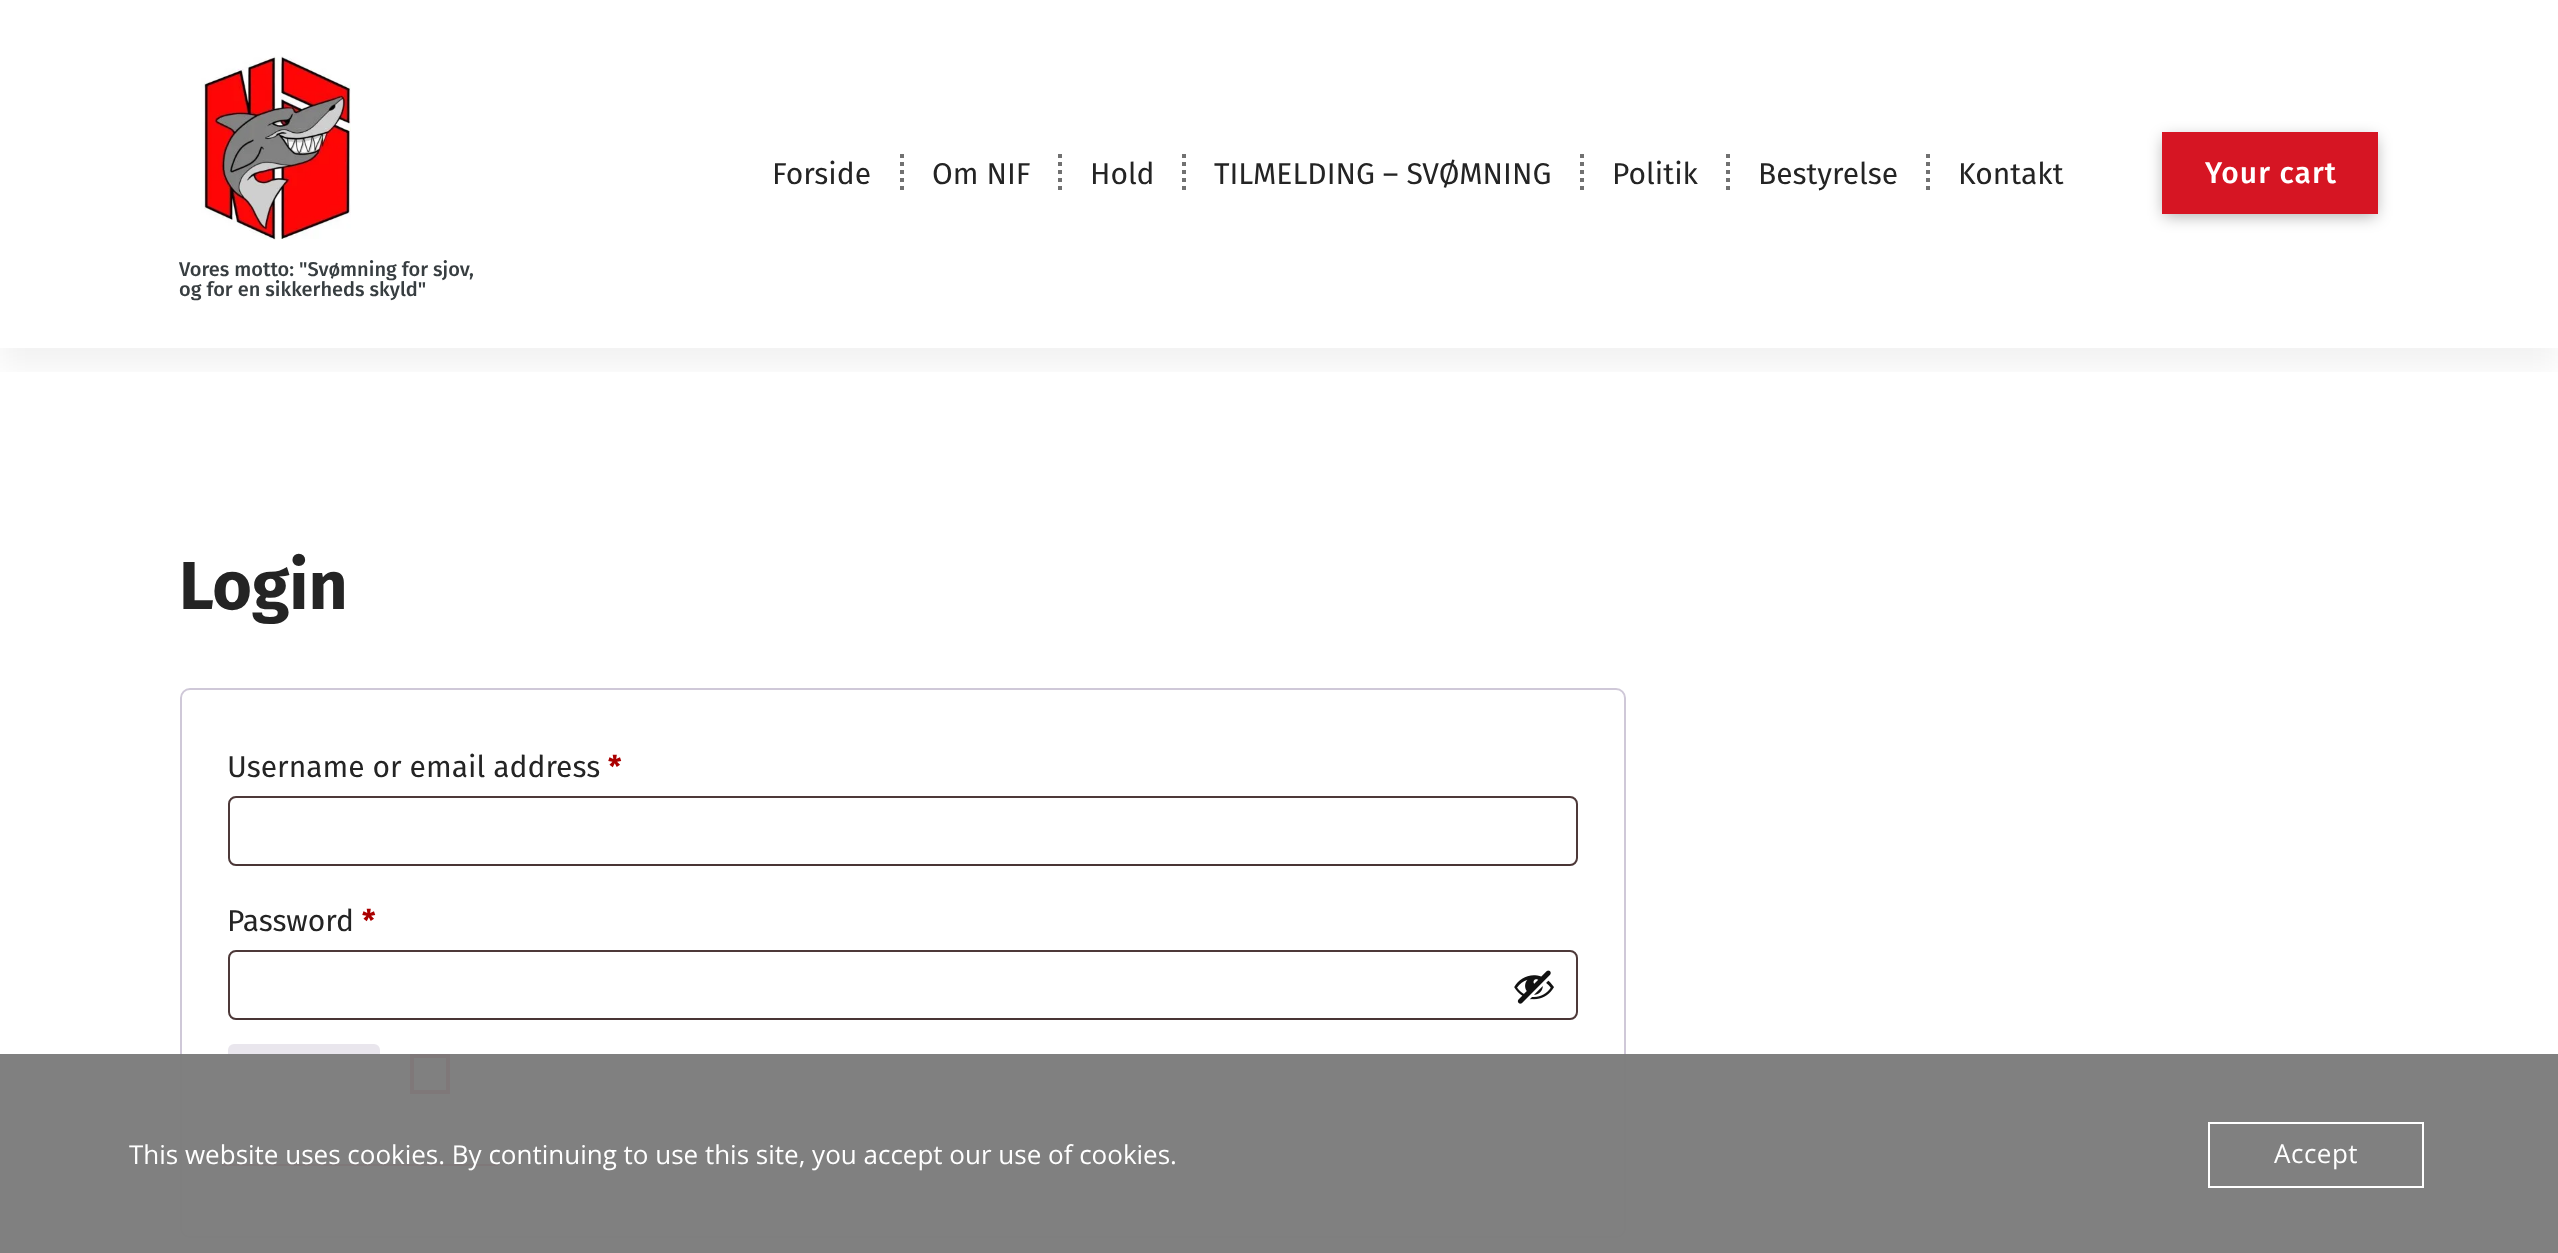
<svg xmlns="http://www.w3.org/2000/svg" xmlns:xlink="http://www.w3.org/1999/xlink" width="2558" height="1253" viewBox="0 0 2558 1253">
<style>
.cls-1{font:30px Fira Sans;fill:#242424}
.cls-2{font:500 30px Fira Sans;letter-spacing:1px;fill:#ffffff}
.cls-3{font:500 20px Fira Sans;fill:#383e41}
.cls-4{font:bold 68px Fira Sans;fill:#242424}
.cls-5{font:bold 30px Fira Sans;fill:#aa0000}
.cls-6{font:26px Open Sans;fill:#ffffff}
.cls-7{font:26px Open Sans;letter-spacing:0.5px;fill:#ffffff}
</style>
<defs>
<clipPath id="clip1"><rect x="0" y="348" width="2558" height="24"/></clipPath>
<clipPath id="clip2"><rect x="228" y="796" width="1350" height="70" rx="8"/></clipPath>
<clipPath id="clip3"><rect x="228" y="950" width="1350" height="70" rx="8"/></clipPath>
</defs>
<rect width="100%" height="100%" fill="#ffffff"/>
<g clip-path="url(#clip1)">
<rect fill="#000000" fill-opacity="0.05" filter="blur(15px)" x="0" y="20" width="2558" height="348"/>
</g>
<path fill="none" stroke="#717171" stroke-width="4" stroke-dasharray="4 4" d="M902 154V194"/>
<path fill="none" stroke="#717171" stroke-width="4" stroke-dasharray="4 4" d="M1060 154V194"/>
<path fill="none" stroke="#717171" stroke-width="4" stroke-dasharray="4 4" d="M1184 154V194"/>
<path fill="none" stroke="#717171" stroke-width="4" stroke-dasharray="4 4" d="M1582 154V194"/>
<path fill="none" stroke="#717171" stroke-width="4" stroke-dasharray="4 4" d="M1728 154V194"/>
<path fill="none" stroke="#717171" stroke-width="4" stroke-dasharray="4 4" d="M1928 154V194"/>
<rect fill="#000000" fill-opacity="0.32" filter="blur(8px)" x="2164" y="138" width="212" height="78"/>
<rect fill="#d61523" x="2162" y="132" width="216" height="82"/>
<image xlink:href="image0.png" x="201" y="56" width="150" height="184"/>
<rect fill="none" stroke="#cfc8d8" stroke-width="2" x="181" y="689" width="1444" height="548" rx="9"/>
<g clip-path="url(#clip2)">
<rect fill="#e9e9ea" x="230" y="864" width="1346" height="2"/>
</g>
<rect fill="none" stroke="#200707" stroke-opacity="0.8" stroke-width="2" x="229" y="797" width="1348" height="68" rx="7"/>
<g clip-path="url(#clip3)">
<rect fill="#e9e9ea" x="230" y="1018" width="1346" height="2"/>
</g>
<rect fill="none" stroke="#200707" stroke-opacity="0.8" stroke-width="2" x="229" y="951" width="1348" height="68" rx="7"/>
<image xlink:href="image1.png" x="1514" y="970" width="40" height="34"/>
<rect fill="#e9e6ed" x="228" y="1044" width="152" height="68" rx="6"/>
<rect fill="none" stroke="#d61523" stroke-width="4" x="412" y="1056" width="36" height="36"/>
<rect fill="#d61523" x="222" y="1164" width="276" height="2"/>
<rect fill="#7c7c7c" fill-opacity="0.97" x="0" y="1054" width="2558" height="199"/>
<rect fill="none" stroke="#ffffff" stroke-width="2" x="2209" y="1123" width="214" height="64"/>
<text class="cls-1" x="772" y="184">Forside</text>
<text class="cls-1" x="932" y="184">Om NIF</text>
<text class="cls-1" x="1090" y="184">Hold</text>
<text class="cls-1" x="1214" y="184">TILMELDING – SVØMNING</text>
<text class="cls-1" x="1612" y="184">Politik</text>
<text class="cls-1" x="1758" y="184">Bestyrelse</text>
<text class="cls-1" x="1958" y="184">Kontakt</text>
<text class="cls-2" x="2205" y="183">Your cart</text>
<text class="cls-3"><tspan x="179" y="276">Vores motto: "Svømning for sjov,</tspan><tspan x="179" y="296">og for en sikkerheds skyld"</tspan></text>
<text class="cls-4" x="179" y="609">Login</text>
<text class="cls-1" x="227" y="777">Username or email address</text>
<text class="cls-5" x="608" y="777">*</text>
<text class="cls-1" x="227" y="931">Password</text>
<text class="cls-5" x="362" y="931">*</text>
<text class="cls-6" x="129" y="1164">This website uses cookies. By continuing to use this site, you accept our use of cookies.</text>
<text class="cls-7" x="2274" y="1163">Accept</text>
</svg>
